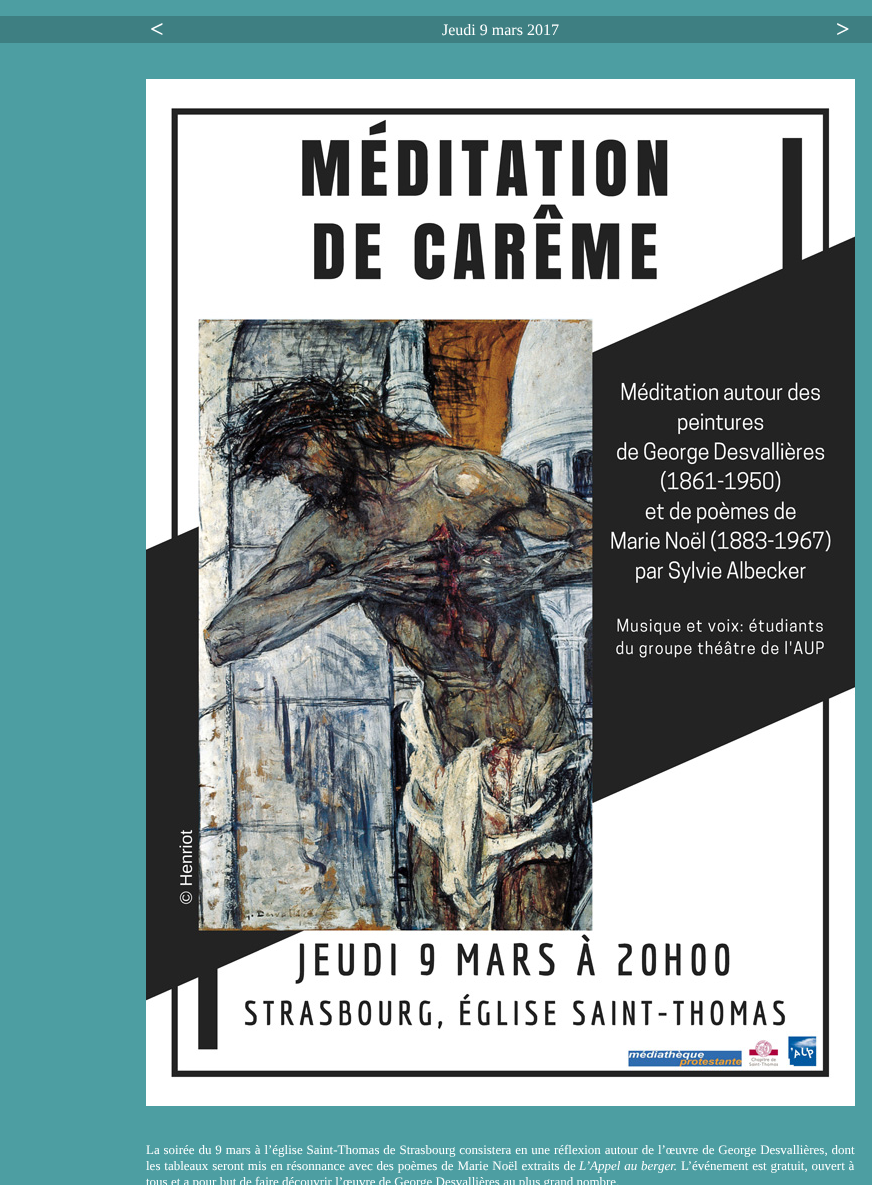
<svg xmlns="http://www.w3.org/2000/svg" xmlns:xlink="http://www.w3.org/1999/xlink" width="872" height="1185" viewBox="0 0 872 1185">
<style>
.cls-1{font:bold 24px Liberation Serif;fill:#ffffff}
.cls-2{font:16px Liberation Serif;fill:#ffffff}
.cls-3{font:13px Liberation Serif;fill:#ffffff}
.cls-4{font:italic 13px Liberation Serif;fill:#ffffff}
</style>
<rect width="100%" height="100%" fill="#4d9ea2"/>
<rect fill="#3e7f82" x="0" y="16" width="872" height="27"/>
<image xlink:href="image0.png" x="146" y="79" width="709" height="1027"/>
<text class="cls-1" x="150" y="37">&lt;</text>
<text class="cls-2" x="442" y="35">Jeudi 9 mars 2017</text>
<text class="cls-1" x="836" y="37">&gt;</text>
<text class="cls-3"><tspan x="146" y="1154" word-spacing="0.6">La soirée du 9 mars à l’église Saint-Thomas de Strasbourg consistera en une réflexion autour de l’œuvre de George Desvallières, dont</tspan><tspan x="146" y="1170" word-spacing="0.6">les tableaux seront mis en résonnance avec des poèmes de Marie Noël extraits de</tspan></text>
<text class="cls-4" x="579" y="1170" word-spacing="0.6">L’Appel au berger.</text>
<text class="cls-3" x="681" y="1170" word-spacing="0.6">L’événement est gratuit, ouvert à</text>
<text class="cls-3" x="146" y="1186">tous et a pour but de faire découvrir l’œuvre de George Desvallières au plus grand nombre.</text>
</svg>
